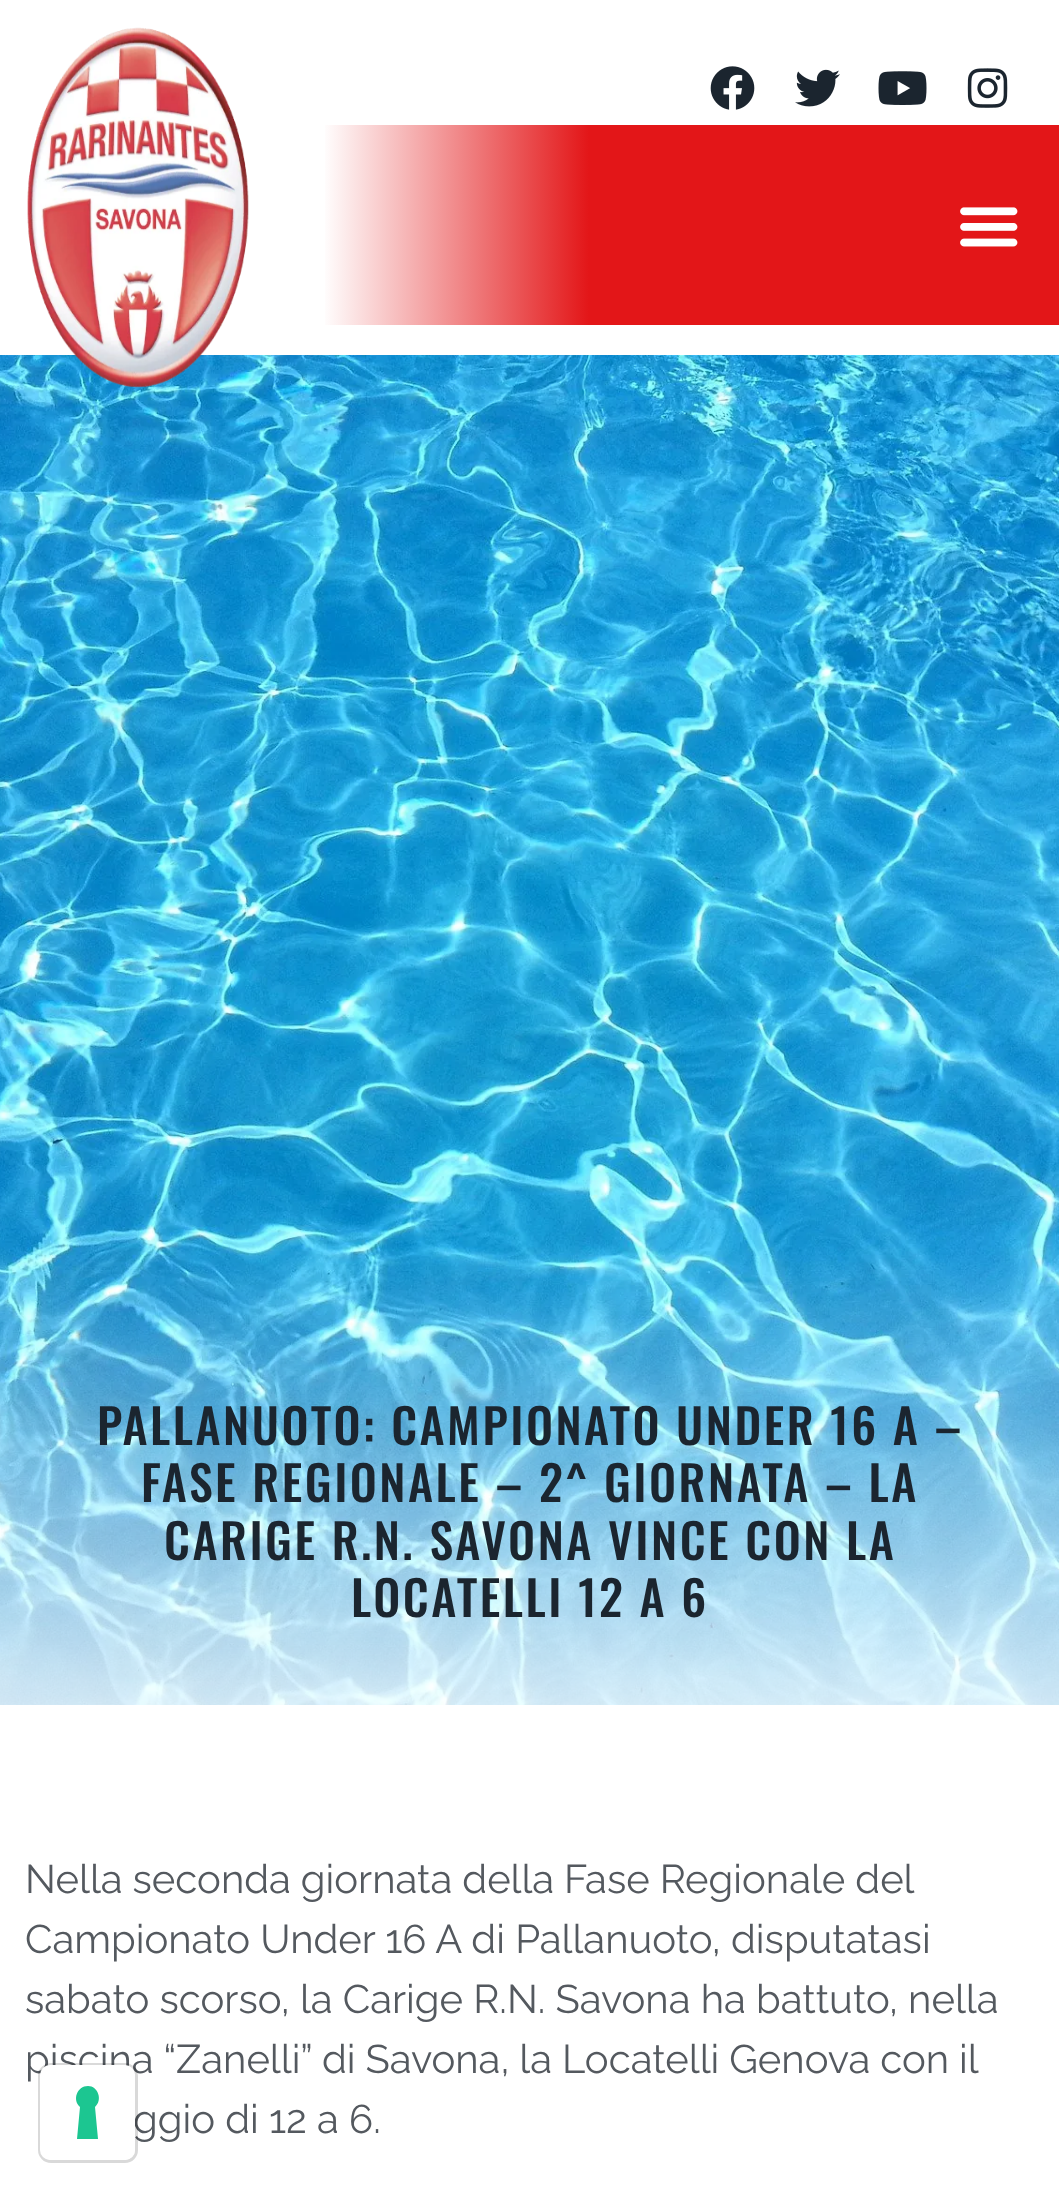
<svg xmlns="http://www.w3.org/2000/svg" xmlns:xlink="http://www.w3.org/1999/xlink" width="1059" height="2199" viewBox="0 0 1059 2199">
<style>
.cls-1{font:500 48px Oswald;letter-spacing:2.5px;fill:#1b252f}
.cls-2{font:40px Raleway;fill:#54595f}
</style>
<defs>
<linearGradient id="g1" gradientUnits="userSpaceOnUse" x1="275" y1="225" x2="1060" y2="225"><stop offset="0.06" stop-color="#ffffff"/><stop offset="0.4" stop-color="#e31618"/></linearGradient>
</defs>
<rect width="100%" height="100%" fill="#ffffff"/>
<image xlink:href="image6.png" x="0" y="355" width="1059" height="1350"/>
<image xlink:href="image0.png" x="27" y="27" width="222" height="361"/>
<image xlink:href="image1.png" x="710" y="66" width="45" height="44"/>
<image xlink:href="image2.png" x="795" y="69" width="45" height="38"/>
<image xlink:href="image3.png" x="878" y="71" width="49" height="34"/>
<image xlink:href="image4.png" x="967" y="68" width="41" height="40"/>
<rect fill="url(#g1)" x="325" y="125" width="734" height="200"/>
<image xlink:href="image5.png" x="960" y="207" width="58" height="40"/>
<text class="cls-1" x="97" y="1445">PALLANUOTO: CAMPIONATO UNDER 16 A –</text>
<text class="cls-1" x="141" y="1502">FASE REGIONALE – 2^ GIORNATA – LA</text>
<text class="cls-1" x="164" y="1560">CARIGE R.N. SAVONA VINCE CON LA</text>
<text class="cls-1" x="351" y="1617">LOCATELLI 12 A 6</text>
<text class="cls-2"><tspan x="25" y="1893" word-spacing="-0.25">Nella seconda giornata della Fase Regionale del</tspan><tspan x="25" y="1953">Campionato Under 16 A di Pallanuoto, disputatasi</tspan><tspan x="25" y="2013">sabato scorso, la Carige R.N. Savona ha battuto, nella</tspan><tspan x="25" y="2073" word-spacing="-0.25">piscina “Zanelli” di Savona, la Locatelli Genova con il</tspan></text>
<text class="cls-2" x="133" y="2133">ggio di 12 a 6.</text>
<rect fill="none" stroke="#000000" stroke-opacity="0.15" stroke-width="3" x="39.5" y="2064.5" width="97" height="97" rx="11.5"/>
<rect fill="#ffffff" x="40" y="2065" width="95" height="95" rx="10"/>
<path fill="#1cc691" fill-rule="evenodd" d="M88 2086C98 2086 103 2100 95 2107L98 2139H77L80 2107C72 2100 77 2086 88 2086Z"/>
</svg>
